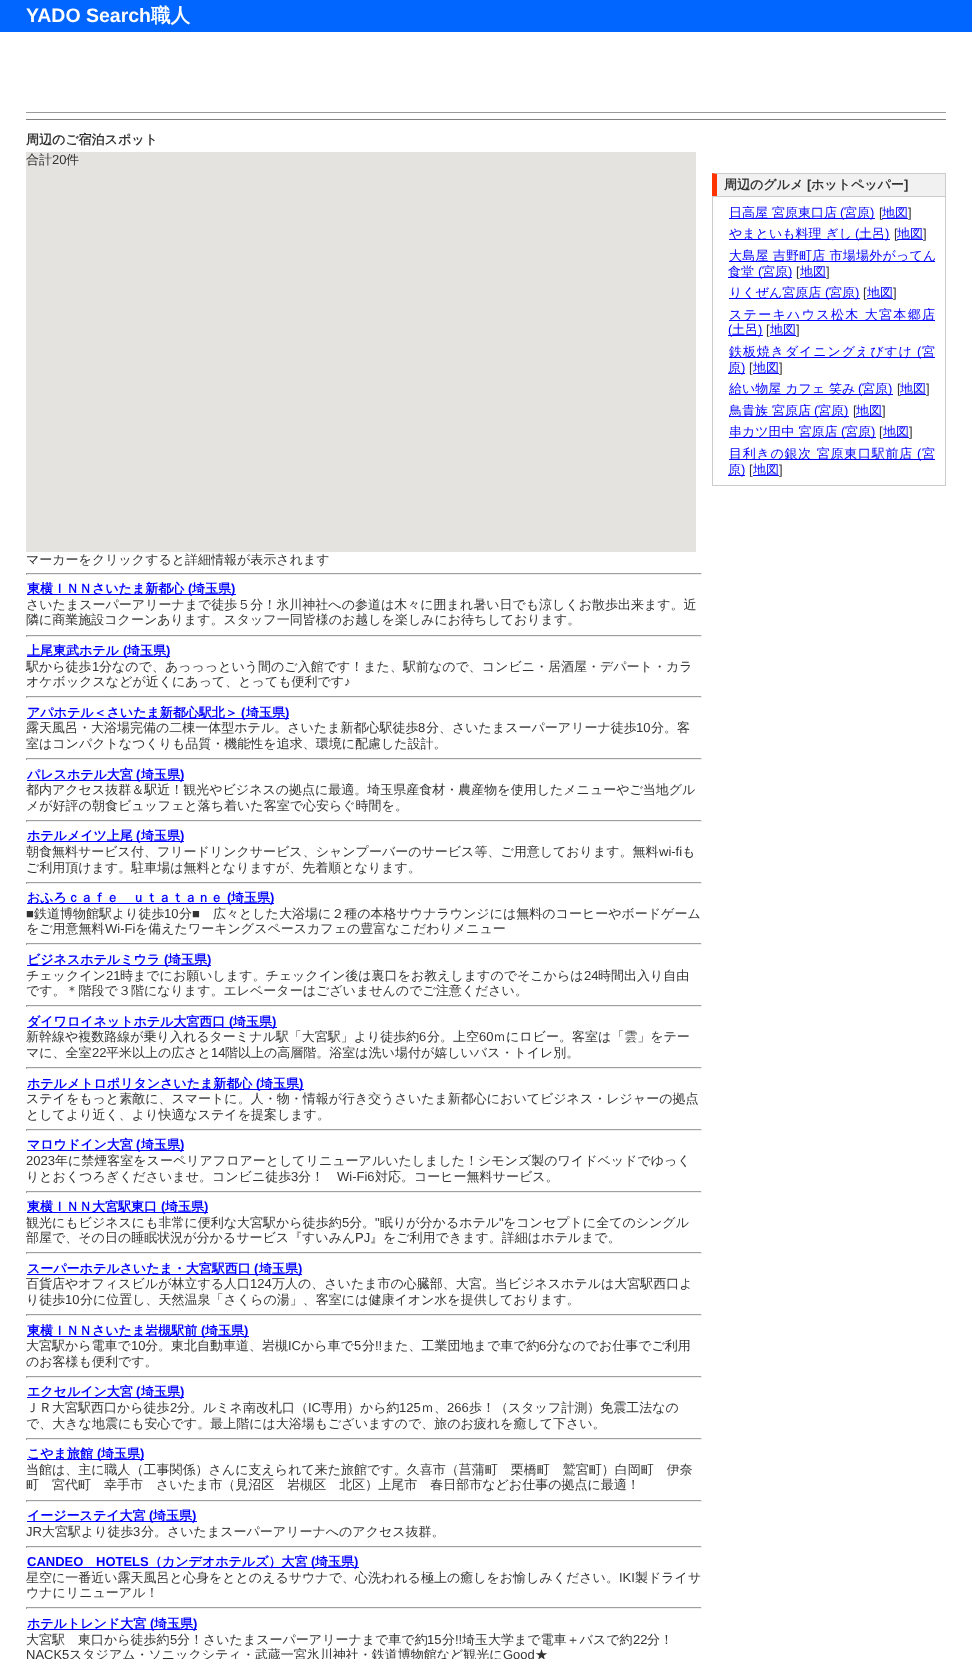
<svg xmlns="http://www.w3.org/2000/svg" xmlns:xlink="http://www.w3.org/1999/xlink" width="972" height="1659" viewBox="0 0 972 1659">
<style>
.cls-1{font:bold 19.5px Liberation Sans;fill:#ffffff}
.cls-2{font:bold 19.5px WenQuanYi Zen Hei;fill:#ffffff}
.cls-3{font:bold 13px WenQuanYi Zen Hei;fill:#333333}
.cls-4{font:500 13px WenQuanYi Zen Hei;fill:#333333}
.cls-5{font:13px Liberation Sans;fill:#333333}
.cls-6{font:bold 13px WenQuanYi Zen Hei;fill:#0000ff}
.cls-7{font:bold 13px Liberation Sans;fill:#0000ff}
.cls-8{font:bold 13px Liberation Sans;fill:#333333}
.cls-9{font:500 13px WenQuanYi Zen Hei;fill:#0000ff}
.cls-10{font:13px Liberation Sans;fill:#0000ff}
.cls-11{font:500 13px WenQuanYi Zen Hei;letter-spacing:0.2px;fill:#0000ff}
.cls-12{font:500 13px WenQuanYi Zen Hei;letter-spacing:1.3px;fill:#0000ff}
.cls-13{font:500 13px WenQuanYi Zen Hei;letter-spacing:0.9px;fill:#0000ff}
.cls-14{font:13px Liberation Sans;letter-spacing:0.9px;fill:#0000ff}
.cls-15{font:500 13px WenQuanYi Zen Hei;letter-spacing:0.75px;fill:#0000ff}
.cls-16{font:13px Liberation Sans;letter-spacing:0.75px;fill:#0000ff}
</style>
<rect width="100%" height="100%" fill="#ffffff"/>
<rect fill="#0066ff" x="0" y="0" width="972" height="32"/>
<rect fill="#999999" x="26" y="112" width="920" height="1"/>
<rect fill="#808080" x="26" y="119" width="920" height="1"/>
<rect fill="#0000ff" x="27" y="594" width="209" height="1"/>
<rect fill="#9f9f9f" x="26" y="635" width="676" height="1"/>
<rect fill="#eeeeee" x="701" y="635" width="1" height="2"/>
<rect fill="#eeeeee" x="26" y="636" width="676" height="1"/>
<rect fill="#9f9f9f" x="26" y="635" width="1" height="2"/>
<rect fill="#0000ff" x="27" y="656" width="143" height="1"/>
<rect fill="#9f9f9f" x="26" y="696" width="676" height="1"/>
<rect fill="#eeeeee" x="701" y="696" width="1" height="2"/>
<rect fill="#eeeeee" x="26" y="697" width="676" height="1"/>
<rect fill="#9f9f9f" x="26" y="696" width="1" height="2"/>
<rect fill="#0000ff" x="27" y="718" width="262" height="1"/>
<rect fill="#9f9f9f" x="26" y="758" width="676" height="1"/>
<rect fill="#eeeeee" x="701" y="758" width="1" height="2"/>
<rect fill="#eeeeee" x="26" y="759" width="676" height="1"/>
<rect fill="#9f9f9f" x="26" y="758" width="1" height="2"/>
<rect fill="#0000ff" x="27" y="780" width="157" height="1"/>
<rect fill="#9f9f9f" x="26" y="820" width="676" height="1"/>
<rect fill="#eeeeee" x="701" y="820" width="1" height="2"/>
<rect fill="#eeeeee" x="26" y="821" width="676" height="1"/>
<rect fill="#9f9f9f" x="26" y="820" width="1" height="2"/>
<rect fill="#0000ff" x="27" y="841" width="157" height="1"/>
<rect fill="#9f9f9f" x="26" y="882" width="676" height="1"/>
<rect fill="#eeeeee" x="701" y="882" width="1" height="2"/>
<rect fill="#eeeeee" x="26" y="883" width="676" height="1"/>
<rect fill="#9f9f9f" x="26" y="882" width="1" height="2"/>
<rect fill="#0000ff" x="27" y="903" width="247" height="1"/>
<rect fill="#9f9f9f" x="26" y="943" width="676" height="1"/>
<rect fill="#eeeeee" x="701" y="943" width="1" height="2"/>
<rect fill="#eeeeee" x="26" y="944" width="676" height="1"/>
<rect fill="#9f9f9f" x="26" y="943" width="1" height="2"/>
<rect fill="#0000ff" x="27" y="965" width="184" height="1"/>
<rect fill="#9f9f9f" x="26" y="1005" width="676" height="1"/>
<rect fill="#eeeeee" x="701" y="1005" width="1" height="2"/>
<rect fill="#eeeeee" x="26" y="1006" width="676" height="1"/>
<rect fill="#9f9f9f" x="26" y="1005" width="1" height="2"/>
<rect fill="#0000ff" x="27" y="1027" width="250" height="1"/>
<rect fill="#9f9f9f" x="26" y="1067" width="676" height="1"/>
<rect fill="#eeeeee" x="701" y="1067" width="1" height="2"/>
<rect fill="#eeeeee" x="26" y="1068" width="676" height="1"/>
<rect fill="#9f9f9f" x="26" y="1067" width="1" height="2"/>
<rect fill="#0000ff" x="27" y="1089" width="277" height="1"/>
<rect fill="#9f9f9f" x="26" y="1129" width="676" height="1"/>
<rect fill="#eeeeee" x="701" y="1129" width="1" height="2"/>
<rect fill="#eeeeee" x="26" y="1130" width="676" height="1"/>
<rect fill="#9f9f9f" x="26" y="1129" width="1" height="2"/>
<rect fill="#0000ff" x="27" y="1150" width="157" height="1"/>
<rect fill="#9f9f9f" x="26" y="1191" width="676" height="1"/>
<rect fill="#eeeeee" x="701" y="1191" width="1" height="2"/>
<rect fill="#eeeeee" x="26" y="1192" width="676" height="1"/>
<rect fill="#9f9f9f" x="26" y="1191" width="1" height="2"/>
<rect fill="#0000ff" x="27" y="1212" width="181" height="1"/>
<rect fill="#9f9f9f" x="26" y="1252" width="676" height="1"/>
<rect fill="#eeeeee" x="701" y="1252" width="1" height="2"/>
<rect fill="#eeeeee" x="26" y="1253" width="676" height="1"/>
<rect fill="#9f9f9f" x="26" y="1252" width="1" height="2"/>
<rect fill="#0000ff" x="27" y="1274" width="275" height="1"/>
<rect fill="#9f9f9f" x="26" y="1314" width="676" height="1"/>
<rect fill="#eeeeee" x="701" y="1314" width="1" height="2"/>
<rect fill="#eeeeee" x="26" y="1315" width="676" height="1"/>
<rect fill="#9f9f9f" x="26" y="1314" width="1" height="2"/>
<rect fill="#0000ff" x="27" y="1336" width="222" height="1"/>
<rect fill="#9f9f9f" x="26" y="1376" width="676" height="1"/>
<rect fill="#eeeeee" x="701" y="1376" width="1" height="2"/>
<rect fill="#eeeeee" x="26" y="1377" width="676" height="1"/>
<rect fill="#9f9f9f" x="26" y="1376" width="1" height="2"/>
<rect fill="#0000ff" x="27" y="1397" width="157" height="1"/>
<rect fill="#9f9f9f" x="26" y="1438" width="676" height="1"/>
<rect fill="#eeeeee" x="701" y="1438" width="1" height="2"/>
<rect fill="#eeeeee" x="26" y="1439" width="676" height="1"/>
<rect fill="#9f9f9f" x="26" y="1438" width="1" height="2"/>
<rect fill="#0000ff" x="27" y="1459" width="117" height="1"/>
<rect fill="#9f9f9f" x="26" y="1500" width="676" height="1"/>
<rect fill="#eeeeee" x="701" y="1500" width="1" height="2"/>
<rect fill="#eeeeee" x="26" y="1501" width="676" height="1"/>
<rect fill="#9f9f9f" x="26" y="1500" width="1" height="2"/>
<rect fill="#0000ff" x="27" y="1521" width="170" height="1"/>
<rect fill="#9f9f9f" x="26" y="1546" width="676" height="1"/>
<rect fill="#eeeeee" x="701" y="1546" width="1" height="2"/>
<rect fill="#eeeeee" x="26" y="1547" width="676" height="1"/>
<rect fill="#9f9f9f" x="26" y="1546" width="1" height="2"/>
<rect fill="#0000ff" x="27" y="1567" width="332" height="1"/>
<rect fill="#9f9f9f" x="26" y="1607" width="676" height="1"/>
<rect fill="#eeeeee" x="701" y="1607" width="1" height="2"/>
<rect fill="#eeeeee" x="26" y="1608" width="676" height="1"/>
<rect fill="#9f9f9f" x="26" y="1607" width="1" height="2"/>
<rect fill="#0000ff" x="27" y="1629" width="170" height="1"/>
<rect fill="#e5e3df" x="26" y="152" width="670" height="400"/>
<rect fill="#9f9f9f" x="26" y="573" width="676" height="1"/>
<rect fill="#eeeeee" x="701" y="573" width="1" height="2"/>
<rect fill="#eeeeee" x="26" y="574" width="676" height="1"/>
<rect fill="#9f9f9f" x="26" y="573" width="1" height="2"/>
<rect fill="#f1f1f1" x="712" y="173" width="233" height="23"/>
<path fill="#cccccc" d="M712 173H946L945 174H717Z"/>
<rect fill="#cccccc" x="945" y="173" width="1" height="23"/>
<path fill="#ff3300" d="M712 196V173L717 174V196Z"/>
<rect fill="none" stroke="#cccccc" x="712.5" y="196.5" width="233" height="289"/>
<rect fill="#0000ff" x="729" y="218" width="146" height="1"/>
<rect fill="#0000ff" x="729" y="239" width="161" height="1"/>
<rect fill="#0000ff" x="729" y="261" width="206" height="1"/>
<rect fill="#0000ff" x="728" y="277" width="64" height="1"/>
<rect fill="#0000ff" x="800" y="277" width="26" height="1"/>
<rect fill="#0000ff" x="729" y="298" width="131" height="1"/>
<rect fill="#0000ff" x="867" y="298" width="26" height="1"/>
<rect fill="#0000ff" x="729" y="320" width="206" height="1"/>
<rect fill="#0000ff" x="728" y="335" width="35" height="1"/>
<rect fill="#0000ff" x="770" y="335" width="26" height="1"/>
<rect fill="#0000ff" x="729" y="357" width="206" height="1"/>
<rect fill="#0000ff" x="728" y="373" width="17" height="1"/>
<rect fill="#0000ff" x="753" y="373" width="26" height="1"/>
<rect fill="#0000ff" x="729" y="394" width="164" height="1"/>
<rect fill="#0000ff" x="729" y="416" width="120" height="1"/>
<rect fill="#0000ff" x="729" y="437" width="147" height="1"/>
<rect fill="#0000ff" x="883" y="437" width="26" height="1"/>
<rect fill="#0000ff" x="729" y="459" width="206" height="1"/>
<rect fill="#0000ff" x="728" y="475" width="17" height="1"/>
<rect fill="#0000ff" x="753" y="475" width="26" height="1"/>
<text class="cls-1" x="26" y="22">YADO Search</text>
<text class="cls-2" x="151" y="22">職人</text>
<text class="cls-3" x="26" y="144">周辺のご宿泊スポット</text>
<text class="cls-4" x="26" y="164">合計</text>
<text class="cls-5" x="52" y="164">20</text>
<text class="cls-4" x="66" y="164">件</text>
<text class="cls-6" x="27" y="593">東横ＩＮＮさいたま新都心</text>
<text class="cls-7" x="188" y="593">(</text>
<text class="cls-6" x="192" y="593">埼玉県</text>
<text class="cls-7" x="231" y="593">)</text>
<text class="cls-4"><tspan x="26" y="609">さいたまスーパーアリーナまで徒歩５分！氷川神社への参道は木々に囲まれ暑い日でも涼しくお散歩出来ます。近</tspan><tspan x="26" y="624">隣に商業施設コクーンあります。スタッフ一同皆様のお越しを楽しみにお待ちしております。</tspan></text>
<text class="cls-6" x="27" y="655">上尾東武ホテル</text>
<text class="cls-7" x="123" y="655">(</text>
<text class="cls-6" x="127" y="655">埼玉県</text>
<text class="cls-7" x="166" y="655">)</text>
<text class="cls-4" x="26" y="671">駅から徒歩</text>
<text class="cls-5" x="92" y="671">1</text>
<text class="cls-4" x="99" y="671">分なので、あっっっという間のご入館です！また、駅前なので、コンビニ・居酒屋・デパート・カラ</text>
<text class="cls-4" x="26" y="686">オケボックスなどが近くにあって、とっても便利です</text>
<text class="cls-5" x="344" y="686">♪</text>
<text class="cls-6" x="27" y="717">アパホテル＜さいたま新都心駅北＞</text>
<text class="cls-7" x="241" y="717">(</text>
<text class="cls-6" x="246" y="717">埼玉県</text>
<text class="cls-7" x="285" y="717">)</text>
<text class="cls-4" x="26" y="732">露天風呂・大浴場完備の二棟一体型ホテル。さいたま新都心駅徒歩</text>
<text class="cls-5" x="418" y="732">8</text>
<text class="cls-4" x="426" y="732">分、さいたまスーパーアリーナ徒歩</text>
<text class="cls-5" x="636" y="732">10</text>
<text class="cls-4" x="651" y="732">分。客</text>
<text class="cls-4" x="26" y="748">室はコンパクトなつくりも品質・機能性を追求、環境に配慮した設計。</text>
<text class="cls-6" x="27" y="779">パレスホテル大宮</text>
<text class="cls-7" x="136" y="779">(</text>
<text class="cls-6" x="141" y="779">埼玉県</text>
<text class="cls-7" x="180" y="779">)</text>
<text class="cls-4"><tspan x="26" y="794">都内アクセス抜群＆駅近！観光やビジネスの拠点に最適。埼玉県産食材・農産物を使用したメニューやご当地グル</tspan><tspan x="26" y="810">メが好評の朝食ビュッフェと落ち着いた客室で心安らぐ時間を。</tspan></text>
<text class="cls-6" x="27" y="840">ホテルメイツ上尾</text>
<text class="cls-7" x="136" y="840">(</text>
<text class="cls-6" x="141" y="840">埼玉県</text>
<text class="cls-7" x="180" y="840">)</text>
<text class="cls-4" x="26" y="856">朝食無料サービス付、フリードリンクサービス、シャンプーバーのサービス等、ご用意しております。無料</text>
<text class="cls-5" x="659" y="856">wi-fi</text>
<text class="cls-4" x="682" y="856">も</text>
<text class="cls-4" x="26" y="872">ご利用頂けます。駐車場は無料となりますが、先着順となります。</text>
<text class="cls-6" x="27" y="902">おふろｃａｆｅ　ｕｔａｔａｎｅ</text>
<text class="cls-7" x="227" y="902">(</text>
<text class="cls-6" x="231" y="902">埼玉県</text>
<text class="cls-7" x="270" y="902">)</text>
<text class="cls-5" x="26" y="918">■</text>
<text class="cls-4" x="34" y="918">鉄道博物館駅より徒歩</text>
<text class="cls-5" x="164" y="918">10</text>
<text class="cls-4" x="179" y="918">分</text>
<text class="cls-5" x="192" y="918">■</text>
<text class="cls-4" x="213" y="918">広々とした大浴場に２種の本格サウナラウンジには無料のコーヒーやボードゲーム</text>
<text class="cls-4" x="26" y="933">をご用意無料</text>
<text class="cls-5" x="105" y="933">Wi-Fi</text>
<text class="cls-4" x="135" y="933">を備えたワーキングスペースカフェの豊富なこだわりメニュー</text>
<text class="cls-6" x="27" y="964">ビジネスホテルミウラ</text>
<text class="cls-7" x="164" y="964">(</text>
<text class="cls-6" x="168" y="964">埼玉県</text>
<text class="cls-7" x="207" y="964">)</text>
<text class="cls-4" x="26" y="980">チェックイン</text>
<text class="cls-5" x="106" y="980">21</text>
<text class="cls-4" x="120" y="980">時までにお願いします。チェックイン後は裏口をお教えしますのでそこからは</text>
<text class="cls-5" x="584" y="980">24</text>
<text class="cls-4" x="598" y="980">時間出入り自由</text>
<text class="cls-4" x="26" y="995">です。＊階段で３階になります。エレベーターはございませんのでご注意ください。</text>
<text class="cls-6" x="27" y="1026">ダイワロイネットホテル大宮西口</text>
<text class="cls-7" x="229" y="1026">(</text>
<text class="cls-6" x="233" y="1026">埼玉県</text>
<text class="cls-7" x="272" y="1026">)</text>
<text class="cls-4" x="26" y="1041">新幹線や複数路線が乗り入れるターミナル駅「大宮駅」より徒歩約</text>
<text class="cls-5" x="419" y="1041">6</text>
<text class="cls-4" x="427" y="1041">分。上空</text>
<text class="cls-5" x="479" y="1041">60</text>
<text class="cls-4" x="493" y="1041">ｍにロビー。客室は「雲」をテー</text>
<text class="cls-4" x="26" y="1057">マに、全室</text>
<text class="cls-5" x="92" y="1057">22</text>
<text class="cls-4" x="106" y="1057">平米以上の広さと</text>
<text class="cls-5" x="211" y="1057">14</text>
<text class="cls-4" x="225" y="1057">階以上の高層階。浴室は洗い場付が嬉しいバス・トイレ別。</text>
<text class="cls-6" x="27" y="1088">ホテルメトロポリタンさいたま新都心</text>
<text class="cls-7" x="256" y="1088">(</text>
<text class="cls-6" x="260" y="1088">埼玉県</text>
<text class="cls-7" x="299" y="1088">)</text>
<text class="cls-4"><tspan x="26" y="1103">ステイをもっと素敵に、スマートに。人・物・情報が行き交うさいたま新都心においてビジネス・レジャーの拠点</tspan><tspan x="26" y="1119">としてより近く、より快適なステイを提案します。</tspan></text>
<text class="cls-6" x="27" y="1149">マロウドイン大宮</text>
<text class="cls-7" x="136" y="1149">(</text>
<text class="cls-6" x="141" y="1149">埼玉県</text>
<text class="cls-7" x="180" y="1149">)</text>
<text class="cls-5" x="26" y="1165">2023</text>
<text class="cls-4" x="55" y="1165">年に禁煙客室をスーペリアフロアーとしてリニューアルいたしました！シモンズ製のワイドベッドでゆっく</text>
<text class="cls-4" x="26" y="1181">りとおくつろぎくださいませ。コンビニ徒歩</text>
<text class="cls-5" x="291" y="1181">3</text>
<text class="cls-4" x="298" y="1181">分！</text>
<text class="cls-5" x="337" y="1181">Wi-Fi6</text>
<text class="cls-4" x="375" y="1181">対応。コーヒー無料サービス。</text>
<text class="cls-6" x="27" y="1211">東横ＩＮＮ大宮駅東口</text>
<text class="cls-7" x="161" y="1211">(</text>
<text class="cls-6" x="165" y="1211">埼玉県</text>
<text class="cls-7" x="204" y="1211">)</text>
<text class="cls-4" x="26" y="1227">観光にもビジネスにも非常に便利な大宮駅から徒歩約</text>
<text class="cls-5" x="342" y="1227">5</text>
<text class="cls-4" x="349" y="1227">分。</text>
<text class="cls-5" x="375" y="1227">"</text>
<text class="cls-4" x="380" y="1227">眠りが分かるホテル</text>
<text class="cls-5" x="499" y="1227">"</text>
<text class="cls-4" x="503" y="1227">をコンセプトに全てのシングル</text>
<text class="cls-4" x="26" y="1242">部屋で、その日の睡眠状況が分かるサービス『すいみん</text>
<text class="cls-5" x="355" y="1242">PJ</text>
<text class="cls-4" x="370" y="1242">』をご利用できます。詳細はホテルまで。</text>
<text class="cls-6" x="27" y="1273">スーパーホテルさいたま・大宮駅西口</text>
<text class="cls-7" x="254" y="1273">(</text>
<text class="cls-6" x="259" y="1273">埼玉県</text>
<text class="cls-7" x="298" y="1273">)</text>
<text class="cls-4" x="26" y="1288">百貨店やオフィスビルが林立する人口</text>
<text class="cls-5" x="250" y="1288">124</text>
<text class="cls-4" x="272" y="1288">万人の、さいたま市の心臓部、大宮。当ビジネスホテルは大宮駅西口よ</text>
<text class="cls-4" x="26" y="1304">り徒歩</text>
<text class="cls-5" x="65" y="1304">10</text>
<text class="cls-4" x="80" y="1304">分に位置し、天然温泉「さくらの湯」、客室には健康イオン水を提供しております。</text>
<text class="cls-6" x="27" y="1335">東横ＩＮＮさいたま岩槻駅前</text>
<text class="cls-7" x="201" y="1335">(</text>
<text class="cls-6" x="205" y="1335">埼玉県</text>
<text class="cls-7" x="244" y="1335">)</text>
<text class="cls-4" x="26" y="1350">大宮駅から電車で</text>
<text class="cls-5" x="131" y="1350">10</text>
<text class="cls-4" x="145" y="1350">分。東北自動車道、岩槻</text>
<text class="cls-5" x="288" y="1350">IC</text>
<text class="cls-4" x="301" y="1350">から車で</text>
<text class="cls-5" x="354" y="1350">5</text>
<text class="cls-4" x="362" y="1350">分</text>
<text class="cls-5" x="375" y="1350">!!</text>
<text class="cls-4" x="382" y="1350">また、工業団地まで車で約</text>
<text class="cls-5" x="539" y="1350">6</text>
<text class="cls-4" x="546" y="1350">分なのでお仕事でご利用</text>
<text class="cls-4" x="26" y="1366">のお客様も便利です。</text>
<text class="cls-6" x="27" y="1396">エクセルイン大宮</text>
<text class="cls-7" x="136" y="1396">(</text>
<text class="cls-6" x="141" y="1396">埼玉県</text>
<text class="cls-7" x="180" y="1396">)</text>
<text class="cls-4" x="26" y="1412">ＪＲ大宮駅西口から徒歩</text>
<text class="cls-5" x="170" y="1412">2</text>
<text class="cls-4" x="177" y="1412">分。ルミネ南改札口（</text>
<text class="cls-5" x="308" y="1412">IC</text>
<text class="cls-4" x="321" y="1412">専用）から約</text>
<text class="cls-5" x="399" y="1412">125</text>
<text class="cls-4" x="421" y="1412">ｍ、</text>
<text class="cls-5" x="447" y="1412">266</text>
<text class="cls-4" x="469" y="1412">歩！（スタッフ計測）免震工法なの</text>
<text class="cls-4" x="26" y="1428">で、大きな地震にも安心です。最上階には大浴場もございますので、旅のお疲れを癒して下さい。</text>
<text class="cls-6" x="27" y="1458">こやま旅館</text>
<text class="cls-7" x="97" y="1458">(</text>
<text class="cls-6" x="101" y="1458">埼玉県</text>
<text class="cls-7" x="140" y="1458">)</text>
<text class="cls-4"><tspan x="26" y="1474">当館は、主に職人（工事関係）さんに支えられて来た旅館です。久喜市（菖蒲町　栗橋町　鷲宮町）白岡町　伊奈</tspan><tspan x="26" y="1489">町　宮代町　幸手市　さいたま市（見沼区　岩槻区　北区）上尾市　春日部市などお仕事の拠点に最適！</tspan></text>
<text class="cls-6" x="27" y="1520">イージーステイ大宮</text>
<text class="cls-7" x="149" y="1520">(</text>
<text class="cls-6" x="153" y="1520">埼玉県</text>
<text class="cls-7" x="192" y="1520">)</text>
<text class="cls-5" x="26" y="1536">JR</text>
<text class="cls-4" x="42" y="1536">大宮駅より徒歩</text>
<text class="cls-5" x="133" y="1536">3</text>
<text class="cls-4" x="141" y="1536">分。さいたまスーパーアリーナへのアクセス抜群。</text>
<text class="cls-7" x="27" y="1566">CANDEO</text>
<text class="cls-7" x="96" y="1566">HOTELS</text>
<text class="cls-6" x="149" y="1566">（カンデオホテルズ）大宮</text>
<text class="cls-7" x="311" y="1566">(</text>
<text class="cls-6" x="315" y="1566">埼玉県</text>
<text class="cls-7" x="354" y="1566">)</text>
<text class="cls-4" x="26" y="1582">星空に一番近い露天風呂と心身をととのえるサウナで、心洗われる極上の癒しをお愉しみください。</text>
<text class="cls-5" x="619" y="1582">IKI</text>
<text class="cls-4" x="635" y="1582">製ドライサ</text>
<text class="cls-4" x="26" y="1597">ウナにリニューアル！</text>
<text class="cls-6" x="27" y="1628">ホテルトレンド大宮</text>
<text class="cls-7" x="150" y="1628">(</text>
<text class="cls-6" x="154" y="1628">埼玉県</text>
<text class="cls-7" x="193" y="1628">)</text>
<text class="cls-4" x="26" y="1644">大宮駅　東口から徒歩約</text>
<text class="cls-5" x="170" y="1644">5</text>
<text class="cls-4" x="177" y="1644">分！さいたまスーパーアリーナまで車で約</text>
<text class="cls-5" x="427" y="1644">15</text>
<text class="cls-4" x="442" y="1644">分</text>
<text class="cls-5" x="455" y="1644">!!</text>
<text class="cls-4" x="462" y="1644">埼玉大学まで電車＋バスで約</text>
<text class="cls-5" x="633" y="1644">22</text>
<text class="cls-4" x="647" y="1644">分！</text>
<text class="cls-5" x="26" y="1659">NACK5</text>
<text class="cls-4" x="69" y="1659">スタジアム・ソニックシティ・武蔵一宮氷川神社・鉄道博物館など観光に</text>
<text class="cls-5" x="503" y="1659">Good</text>
<text class="cls-4" x="535" y="1659">★</text>
<text class="cls-4" x="26" y="564">マーカーをクリックすると詳細情報が表示されます</text>
<text class="cls-3" x="724" y="189">周辺のグルメ</text>
<text class="cls-8" x="807" y="189">[</text>
<text class="cls-3" x="811" y="189">ホットペッパー</text>
<text class="cls-8" x="904" y="189">]</text>
<text class="cls-9" x="729" y="217">日高屋 宮原東口店</text>
<text class="cls-10" x="840" y="217">(</text>
<text class="cls-9" x="844" y="217">宮原</text>
<text class="cls-10" x="870" y="217">)</text>
<text class="cls-5" x="879" y="217">[</text>
<rect fill="#0000ff" x="882" y="218" width="26" height="1"/>
<text class="cls-9" x="882" y="217">地図</text>
<text class="cls-5" x="908" y="217">]</text>
<text class="cls-9" x="729" y="238">やまといも料理 ぎし</text>
<text class="cls-10" x="855" y="238">(</text>
<text class="cls-9" x="859" y="238">土呂</text>
<text class="cls-10" x="885" y="238">)</text>
<text class="cls-5" x="894" y="238">[</text>
<rect fill="#0000ff" x="897" y="239" width="26" height="1"/>
<text class="cls-9" x="897" y="238">地図</text>
<text class="cls-5" x="923" y="238">]</text>
<text class="cls-11" x="729" y="260">大島屋 吉野町店 市場場外がってん</text>
<text class="cls-9" x="728" y="276">食堂</text>
<text class="cls-10" x="758" y="276">(</text>
<text class="cls-9" x="762" y="276">宮原</text>
<text class="cls-10" x="788" y="276">)</text>
<text class="cls-5" x="796" y="276">[</text>
<text class="cls-9" x="800" y="276">地図</text>
<text class="cls-5" x="826" y="276">]</text>
<text class="cls-9" x="729" y="297">りくぜん宮原店</text>
<text class="cls-10" x="825" y="297">(</text>
<text class="cls-9" x="829" y="297">宮原</text>
<text class="cls-10" x="855" y="297">)</text>
<text class="cls-5" x="863" y="297">[</text>
<text class="cls-9" x="867" y="297">地図</text>
<text class="cls-5" x="893" y="297">]</text>
<text class="cls-12" x="729" y="319">ステーキハウス松木 大宮本郷店</text>
<text class="cls-10" x="728" y="334">(</text>
<text class="cls-9" x="732" y="334">土呂</text>
<text class="cls-10" x="758" y="334">)</text>
<text class="cls-5" x="766" y="334">[</text>
<text class="cls-9" x="770" y="334">地図</text>
<text class="cls-5" x="796" y="334">]</text>
<text class="cls-13" x="729" y="356">鉄板焼きダイニングえびすけ</text>
<text class="cls-14" x="917" y="356">(</text>
<text class="cls-13" x="922" y="356">宮</text>
<text class="cls-9" x="728" y="372">原</text>
<text class="cls-10" x="741" y="372">)</text>
<text class="cls-5" x="749" y="372">[</text>
<text class="cls-9" x="753" y="372">地図</text>
<text class="cls-5" x="779" y="372">]</text>
<text class="cls-9" x="729" y="393">給い物屋 カフェ 笑み</text>
<text class="cls-10" x="858" y="393">(</text>
<text class="cls-9" x="862" y="393">宮原</text>
<text class="cls-10" x="888" y="393">)</text>
<text class="cls-5" x="897" y="393">[</text>
<rect fill="#0000ff" x="900" y="394" width="26" height="1"/>
<text class="cls-9" x="900" y="393">地図</text>
<text class="cls-5" x="926" y="393">]</text>
<text class="cls-9" x="729" y="415">鳥貴族 宮原店</text>
<text class="cls-10" x="814" y="415">(</text>
<text class="cls-9" x="818" y="415">宮原</text>
<text class="cls-10" x="844" y="415">)</text>
<text class="cls-5" x="853" y="415">[</text>
<rect fill="#0000ff" x="856" y="416" width="26" height="1"/>
<text class="cls-9" x="856" y="415">地図</text>
<text class="cls-5" x="882" y="415">]</text>
<text class="cls-9" x="729" y="436">串カツ田中 宮原店</text>
<text class="cls-10" x="841" y="436">(</text>
<text class="cls-9" x="845" y="436">宮原</text>
<text class="cls-10" x="871" y="436">)</text>
<text class="cls-5" x="879" y="436">[</text>
<text class="cls-9" x="883" y="436">地図</text>
<text class="cls-5" x="909" y="436">]</text>
<text class="cls-15" x="729" y="458">目利きの銀次 宮原東口駅前店</text>
<text class="cls-16" x="917" y="458">(</text>
<text class="cls-15" x="922" y="458">宮</text>
<text class="cls-9" x="728" y="474">原</text>
<text class="cls-10" x="741" y="474">)</text>
<text class="cls-5" x="749" y="474">[</text>
<text class="cls-9" x="753" y="474">地図</text>
<text class="cls-5" x="779" y="474">]</text>
</svg>
